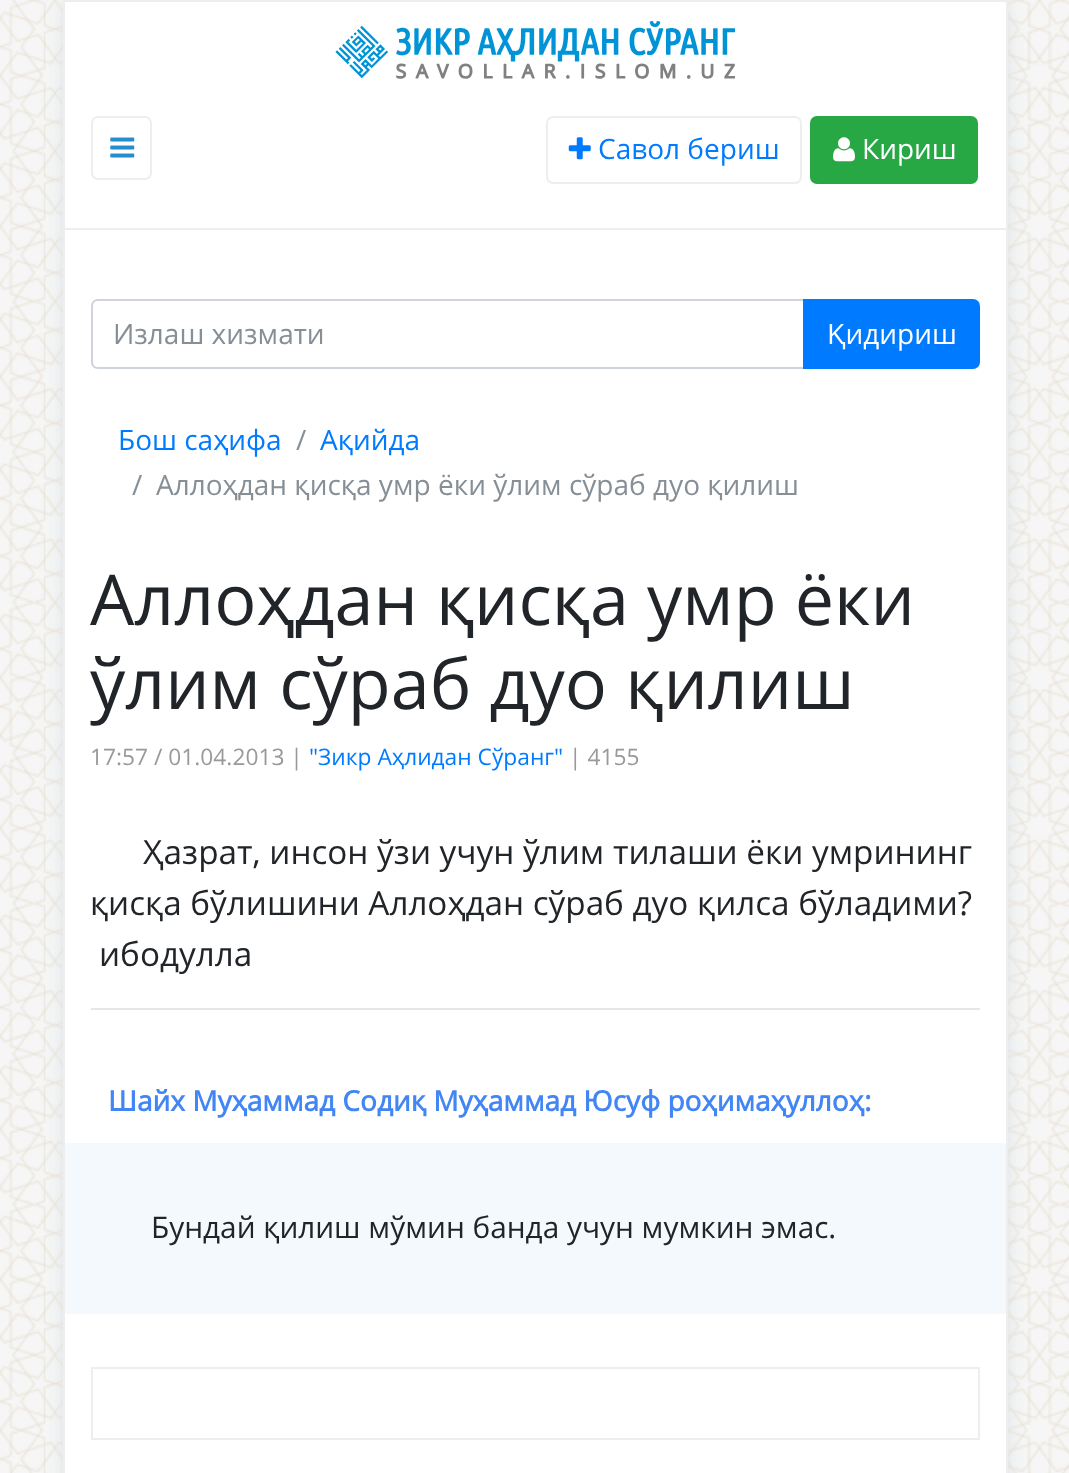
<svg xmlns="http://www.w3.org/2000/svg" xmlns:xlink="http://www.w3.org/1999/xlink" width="1069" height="1473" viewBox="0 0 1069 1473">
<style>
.cls-1{font:28px Open Sans;fill:#007bff}
.cls-2{font:28px Open Sans;fill:#ffffff}
.cls-3{font:28px Open Sans;fill:#868e96}
.cls-4{font:70px Open Sans;fill:#212529}
.cls-5{font:22.75px Open Sans;fill:#999999}
.cls-6{font:22.75px Open Sans;fill:#007bff}
.cls-7{font:33.25px Open Sans;fill:#212529}
.cls-8{font:bold 28px Open Sans;fill:#4285f4}
.cls-9{font:29.75px Open Sans;fill:#212529}
</style>
<rect width="100%" height="100%" fill="#f2f2f2"/>
<image xlink:href="image0.png" x="0" y="0" width="1069" height="1473"/>
<rect fill="#dce2e3" filter="blur(9px)" x="63" y="2" width="945" height="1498"/>
<rect fill="#ffffff" stroke="#eeeeee" stroke-width="2" x="64" y="1" width="943" height="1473"/>
<rect fill="#eeeeee" x="65" y="228" width="941" height="2"/>
<image xlink:href="image1.png" x="335" y="21" width="401" height="58"/>
<rect fill="none" stroke="#eeeeee" stroke-width="2" x="92" y="117" width="59" height="62" rx="6"/>
<image xlink:href="image2.png" x="110" y="137" width="25" height="21"/>
<rect fill="none" stroke="#eeeeee" stroke-width="2" x="547" y="117" width="254" height="66" rx="6"/>
<image xlink:href="image3.png" x="568" y="137" width="23" height="23"/>
<rect fill="#28a745" stroke="#28a745" stroke-width="2" x="811" y="117" width="166" height="66" rx="6"/>
<image xlink:href="image4.png" x="833" y="137" width="22" height="25"/>
<path fill="none" stroke="#ced4da" stroke-width="2" d="M98 300H804V368H98C94.5 368 92 365.5 92 362V306C92 302.5 94.5 300 98 300Z"/>
<path fill="#007bff" stroke="#007bff" stroke-width="2" d="M804 300H973C976.5 300 979 302.5 979 306V362C979 365.5 976.5 368 973 368H804Z"/>
<rect fill="#e6e6e6" x="91" y="1008" width="889" height="2"/>
<rect fill="#f3f9fd" x="65" y="1143" width="941" height="171"/>
<rect fill="none" stroke="#eeeeee" stroke-width="2" x="92" y="1368" width="887" height="71"/>
<text class="cls-1" x="598" y="159">Савол бериш</text>
<text class="cls-2" x="862" y="159">Кириш</text>
<text class="cls-3" x="113" y="344">Излаш хизмати</text>
<text class="cls-2" x="827" y="344">Қидириш</text>
<text class="cls-1" x="118" y="450">Бош саҳифа</text>
<text class="cls-3" x="296" y="450">/</text>
<text class="cls-1" x="320" y="450">Ақийда</text>
<text class="cls-3" x="132" y="495">/</text>
<text class="cls-3" x="156" y="495">Аллоҳдан қисқа умр ёки ўлим сўраб дуо қилиш</text>
<text class="cls-4"><tspan x="90" y="625">Аллоҳдан қисқа умр ёки</tspan><tspan x="90" y="709">ўлим сўраб дуо қилиш</tspan></text>
<text class="cls-5" x="90" y="765">17:57 / 01.04.2013 |</text>
<text class="cls-6" x="309" y="765">"Зикр Аҳлидан Сўранг"</text>
<text class="cls-5" x="569" y="765">| 4155</text>
<text class="cls-7" x="143" y="864">Ҳазрат, инсон ўзи учун ўлим тилаши ёки умрининг</text>
<text class="cls-7" x="90" y="915">қисқа бўлишини Аллоҳдан сўраб дуо қилса бўладими?</text>
<text class="cls-7" x="99" y="966">ибодулла</text>
<text class="cls-8" x="108" y="1111">Шайх Муҳаммад Содиқ Муҳаммад Юсуф роҳимаҳуллоҳ:</text>
<text class="cls-9" x="151" y="1238">Бундай қилиш мўмин банда учун мумкин эмас.</text>
</svg>
